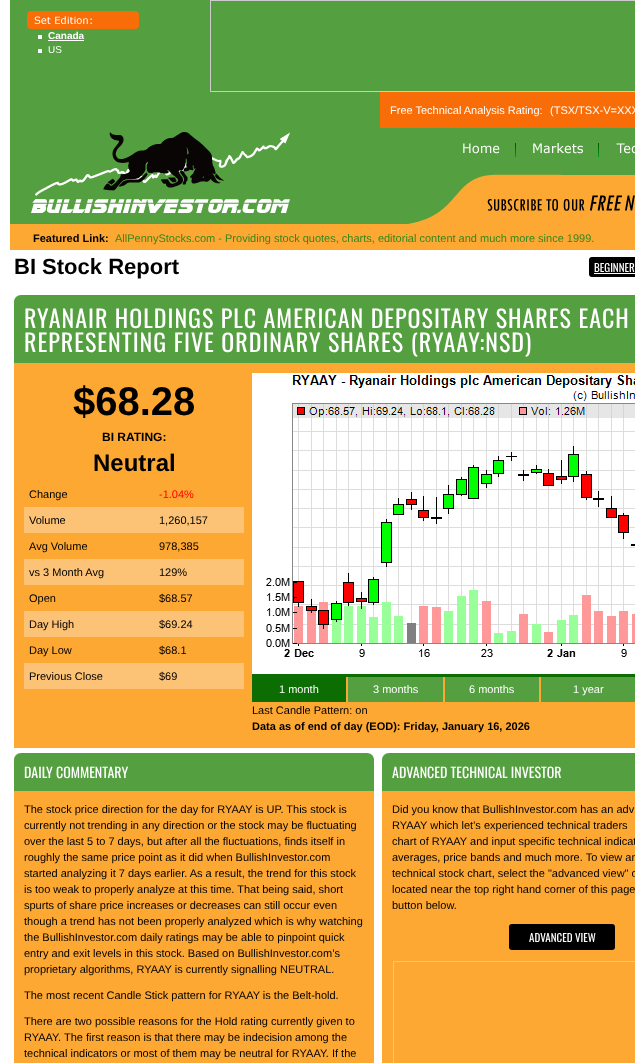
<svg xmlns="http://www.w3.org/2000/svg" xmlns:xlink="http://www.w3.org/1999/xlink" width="635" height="1063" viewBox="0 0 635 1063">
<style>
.cls-1{font:bold 10px Liberation Sans;fill:#ffffff}
.cls-2{font:10px Liberation Sans;fill:#ffffff}
.cls-3{font:11px Liberation Sans;fill:#ffffff}
.cls-4{font:bold 11px Liberation Sans;fill:#000000}
.cls-5{font:11px Liberation Sans;fill:#34871d}
.cls-6{font:bold 22px Liberation Sans;fill:#000000}
.cls-7{font:11px Oswald;fill:#ffffff}
.cls-8{font:24px Oswald;letter-spacing:1px;fill:#ffffff}
.cls-9{font:bold 40px Liberation Sans;fill:#000000}
.cls-10{font:bold 12px Liberation Sans;fill:#000000}
.cls-11{font:bold 24px Liberation Sans;fill:#000000}
.cls-12{font:11px Liberation Sans;fill:#000000}
.cls-13{font:11px Liberation Sans;fill:#ff0000}
.cls-14{font:14px Oswald;fill:#ffffff}
</style>
<rect width="100%" height="100%" fill="#ffffff"/>
<rect fill="#549f3f" x="10" y="0" width="625" height="224"/>
<image xlink:href="image0.png" x="27" y="11" width="112" height="18"/>
<rect fill="#ffffff" x="38" y="35" width="4" height="4"/>
<rect fill="#ffffff" x="48" y="40" width="36" height="1"/>
<rect fill="#ffffff" x="38" y="49" width="4" height="4"/>
<rect fill="none" stroke="#cccccc" x="210.5" y="0.5" width="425" height="91"/>
<rect fill="#f86d07" x="380" y="92" width="255" height="36"/>
<image xlink:href="image1.png" x="31" y="132" width="259" height="81"/>
<image xlink:href="image2.png" x="515" y="143" width="1" height="14"/>
<image xlink:href="image3.png" x="463" y="143" width="37" height="11"/>
<image xlink:href="image2.png" x="598" y="143" width="1" height="14"/>
<image xlink:href="image4.png" x="533" y="143" width="50" height="11"/>
<image xlink:href="image5.png" x="616" y="143" width="19" height="11"/>
<image xlink:href="image6.png" x="408" y="174" width="227" height="50"/>
<image xlink:href="image7.png" x="487" y="195" width="148" height="16"/>
<rect fill="#fea834" x="10" y="224" width="625" height="26"/>
<rect fill="#000000" x="589" y="257" width="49" height="20" rx="3"/>
<rect fill="#ffffff" x="594" y="273" width="41" height="1"/>
<path fill="#549f3f" d="M21 295H635C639 295 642 298 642 302V363H14V302C14 298 17 295 21 295Z"/>
<rect fill="#fea834" x="14" y="363" width="621" height="385"/>
<rect fill="#fcc275" x="24" y="507" width="220" height="26"/>
<rect fill="#fcc275" x="24" y="559" width="220" height="26"/>
<rect fill="#fcc275" x="24" y="611" width="220" height="26"/>
<rect fill="#fcc275" x="24" y="663" width="220" height="26"/>
<image xlink:href="image8.png" x="252" y="373" width="383" height="301"/>
<rect fill="#0c6d02" x="252" y="674" width="383" height="3"/>
<rect fill="#0c6d02" x="252" y="677" width="94" height="25"/>
<rect fill="#549f40" x="348" y="677" width="95" height="25"/>
<rect fill="#549f40" x="445" y="677" width="94" height="25"/>
<rect fill="#549f40" x="541" y="677" width="94" height="25"/>
<path fill="#549f3f" d="M21 753H367C371 753 374 756 374 760V791H14V760C14 756 17 753 21 753Z"/>
<rect fill="#fea834" x="14" y="791" width="360" height="272"/>
<path fill="#549f3f" d="M389 753H635C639 753 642 756 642 760V791H382V760C382 756 385 753 389 753Z"/>
<rect fill="#fea834" x="382" y="791" width="253" height="272"/>
<rect fill="#000000" x="509" y="924" width="106" height="26" rx="3"/>
<rect fill="none" stroke="#cccccc" x="393.5" y="961.5" width="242" height="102"/>
<text class="cls-1" x="48" y="39">Canada</text>
<text class="cls-2" x="48" y="53">US</text>
<text class="cls-3" x="390" y="114">Free Technical Analysis Rating:</text>
<text class="cls-3" x="550" y="114">(TSX/TSX-V=XXX</text>
<text class="cls-4" x="33" y="242">Featured Link:</text>
<text class="cls-5" x="115" y="242">AllPennyStocks.com - Providing stock quotes, charts, editorial content and much more since 1999.</text>
<text class="cls-6" x="14" y="274">BI Stock Report</text>
<text class="cls-7" x="594" y="272">BEGINNER</text>
<text class="cls-8"><tspan x="24" y="328">RYANAIR HOLDINGS PLC AMERICAN DEPOSITARY SHARES EACH</tspan><tspan x="24" y="352">REPRESENTING FIVE ORDINARY SHARES (RYAAY:NSD)</tspan></text>
<text class="cls-9" x="73" y="415">$68.28</text>
<text class="cls-10" x="102" y="441">BI RATING:</text>
<text class="cls-11" x="93" y="471">Neutral</text>
<text class="cls-12" x="29" y="498">Change</text>
<text class="cls-13" x="159" y="498">-1.04%</text>
<text class="cls-12" x="29" y="524">Volume</text>
<text class="cls-12" x="159" y="524">1,260,157</text>
<text class="cls-12" x="29" y="550">Avg Volume</text>
<text class="cls-12" x="159" y="550">978,385</text>
<text class="cls-12" x="29" y="576">vs 3 Month Avg</text>
<text class="cls-12" x="159" y="576">129%</text>
<text class="cls-12" x="29" y="602">Open</text>
<text class="cls-12" x="159" y="602">$68.57</text>
<text class="cls-12" x="29" y="628">Day High</text>
<text class="cls-12" x="159" y="628">$69.24</text>
<text class="cls-12" x="29" y="654">Day Low</text>
<text class="cls-12" x="159" y="654">$68.1</text>
<text class="cls-12" x="29" y="680">Previous Close</text>
<text class="cls-12" x="159" y="680">$69</text>
<text class="cls-3" x="279" y="693">1 month</text>
<text class="cls-3" x="373" y="693">3 months</text>
<text class="cls-3" x="469" y="693">6 months</text>
<text class="cls-3" x="573" y="693">1 year</text>
<text class="cls-12" x="252" y="714">Last Candle Pattern: on</text>
<text class="cls-4" x="252" y="730">Data as of end of day (EOD): Friday, January 16, 2026</text>
<text class="cls-14" x="24" y="778">DAILY COMMENTARY</text>
<text class="cls-12"><tspan x="24" y="813">The stock price direction for the day for RYAAY is UP. This stock is</tspan><tspan x="24" y="829">currently not trending in any direction or the stock may be fluctuating</tspan><tspan x="24" y="845">over the last 5 to 7 days, but after all the fluctuations, finds itself in</tspan><tspan x="24" y="861">roughly the same price point as it did when BullishInvestor.com</tspan><tspan x="24" y="877">started analyzing it 7 days earlier. As a result, the trend for this stock</tspan><tspan x="24" y="893">is too weak to properly analyze at this time. That being said, short</tspan><tspan x="24" y="909">spurts of share price increases or decreases can still occur even</tspan><tspan x="24" y="925">though a trend has not been properly analyzed which is why watching</tspan><tspan x="24" y="941">the BullishInvestor.com daily ratings may be able to pinpoint quick</tspan><tspan x="24" y="957">entry and exit levels in this stock. Based on BullishInvestor.com’s</tspan><tspan x="24" y="973">proprietary algorithms, RYAAY is currently signalling NEUTRAL.</tspan></text>
<text class="cls-12" x="24" y="999">The most recent Candle Stick pattern for RYAAY is the Belt-hold.</text>
<text class="cls-12"><tspan x="24" y="1025">There are two possible reasons for the Hold rating currently given to</tspan><tspan x="24" y="1041">RYAAY. The first reason is that there may be indecision among the</tspan><tspan x="24" y="1057">technical indicators or most of them may be neutral for RYAAY. If the</tspan></text>
<text class="cls-14" x="392" y="778">ADVANCED TECHNICAL INVESTOR</text>
<text class="cls-12"><tspan x="392" y="813">Did you know that BullishInvestor.com has an adv</tspan><tspan x="392" y="829">RYAAY which let’s experienced technical traders</tspan><tspan x="392" y="845">chart of RYAAY and input specific technical indicat</tspan><tspan x="392" y="861">averages, price bands and much more. To view an</tspan><tspan x="392" y="877">technical stock chart, select the "advanced view" o</tspan><tspan x="392" y="893">located near the top right hand corner of this page</tspan><tspan x="392" y="909">button below.</tspan></text>
<text class="cls-7" x="529" y="942">ADVANCED VIEW</text>
</svg>
